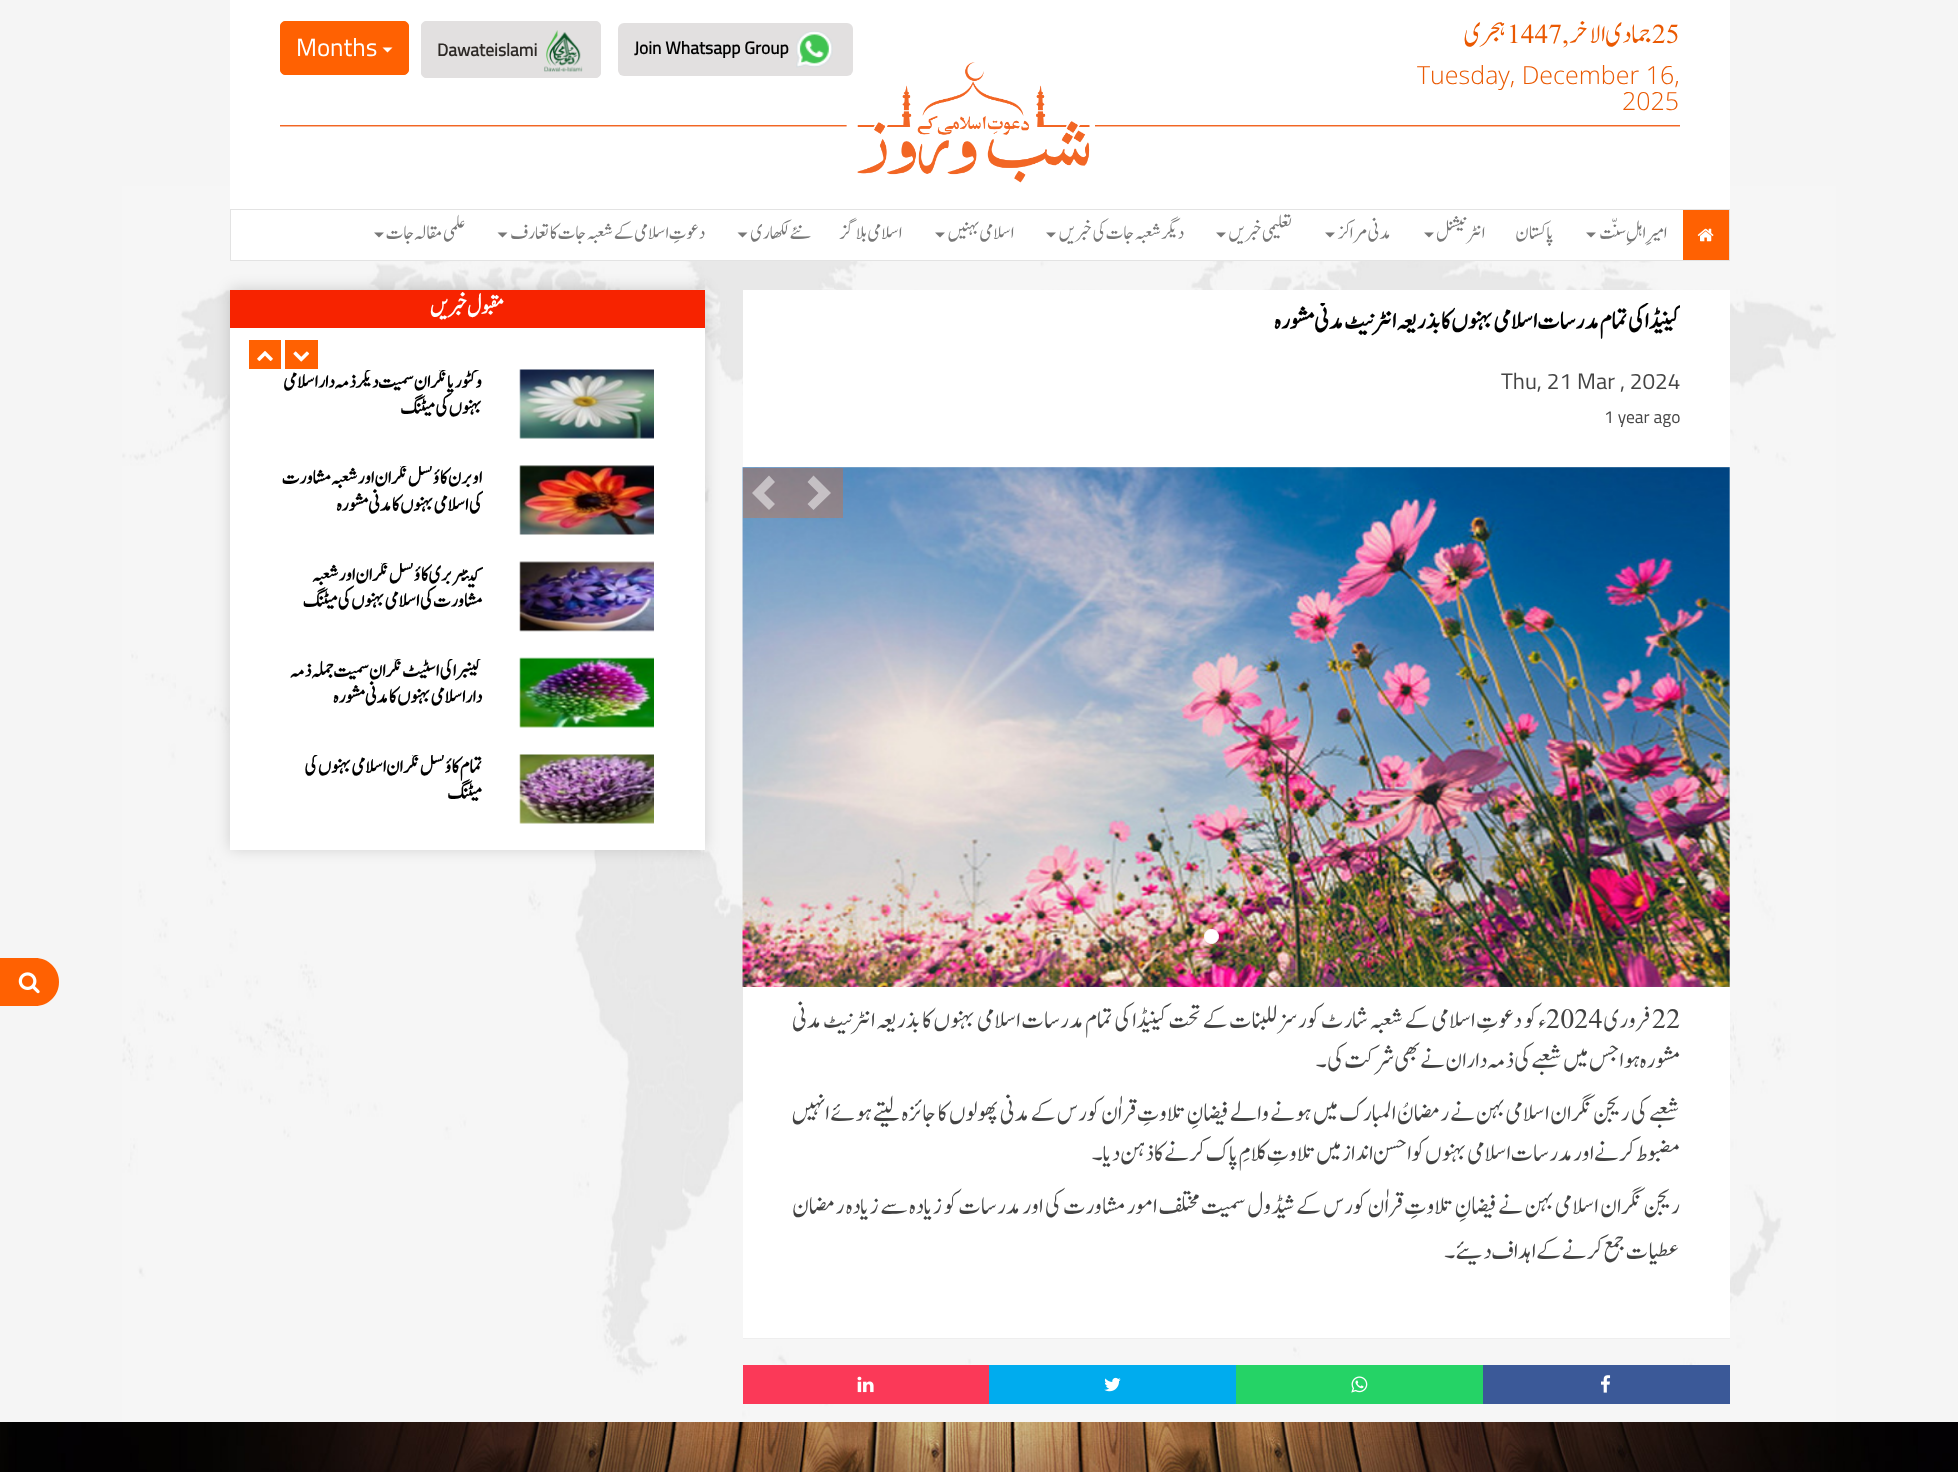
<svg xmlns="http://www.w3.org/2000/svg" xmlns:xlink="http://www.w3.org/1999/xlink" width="1958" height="1472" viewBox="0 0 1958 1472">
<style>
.cls-1{font:27.5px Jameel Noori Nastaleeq;fill:#ea5902}
.cls-2{font:31px Jameel Noori Nastaleeq;direction:rtl;fill:#ea5902}
.cls-3{font:300 25px Open Sans;fill:#ea5902}
.cls-4{font:25px Titillium Web;fill:#ffffff}
.cls-5{font:bold 17.5px Titillium Web;fill:#2d2926}
.cls-6{font:bold 17.5px Titillium Web;fill:#010101}
.cls-7{font:22.5px Jameel Noori Nastaleeq;direction:rtl;fill:#777777}
.cls-8{font:bold 28.3px Jameel Noori Nastaleeq;direction:rtl;fill:#010101}
.cls-9{font:22.5px Titillium Web;fill:#444444}
.cls-10{font:17.5px Titillium Web;fill:#444444}
.cls-11{font:28.3px Jameel Noori Nastaleeq;fill:#444444}
.cls-12{font:28.3px Jameel Noori Nastaleeq;direction:rtl;fill:#444444}
.cls-13{font:bold 25px Jameel Noori Nastaleeq;direction:rtl;fill:#ffffff}
.cls-14{font:bold 22.5px Jameel Noori Nastaleeq;direction:rtl;fill:#010101}
</style>
<defs>
<clipPath id="clip1"><rect x="791" y="303" width="889" height="45"/></clipPath>
<clipPath id="clip2"><rect x="281" y="370" width="202" height="54"/></clipPath>
<clipPath id="clip3"><rect x="281" y="466" width="202" height="54"/></clipPath>
<clipPath id="clip4"><rect x="281" y="563" width="202" height="53"/></clipPath>
<clipPath id="clip5"><rect x="281" y="659" width="202" height="54"/></clipPath>
<clipPath id="clip6"><rect x="281" y="755" width="202" height="54"/></clipPath>
</defs>
<rect width="100%" height="100%" fill="#f5f5f5"/>
<image xlink:href="image0.png" x="122" y="186" width="1714" height="1236"/>
<rect fill="#ffffff" x="230" y="0" width="1500" height="209"/>
<rect fill="#ffffff" x="231" y="210" width="1452" height="50"/>
<rect fill="none" stroke="#e3e3e3" x="230.5" y="209.5" width="1499" height="51"/>
<rect fill="#ff6102" x="1683" y="210" width="46" height="50"/>
<image xlink:href="image4.png" x="1697" y="228" width="17" height="14"/>
<path fill="#777777" d="M1586 232.5H1596L1591 237.5Z"/>
<path fill="#777777" d="M1424 232.5H1434L1429 237.5Z"/>
<path fill="#777777" d="M1325 232.5H1335L1330 237.5Z"/>
<path fill="#777777" d="M1216 232.5H1226L1221 237.5Z"/>
<path fill="#777777" d="M1046 232.5H1056L1051 237.5Z"/>
<path fill="#777777" d="M935 232.5H945L940 237.5Z"/>
<path fill="#777777" d="M737.5 232.5H747.5L742.5 237.5Z"/>
<path fill="#777777" d="M497.5 232.5H507.5L502.5 237.5Z"/>
<path fill="#777777" d="M374 232.5H384L379 237.5Z"/>
<rect fill="#ffffff" x="743" y="290" width="987" height="1048"/>
<image xlink:href="image5.png" x="742" y="467" width="988" height="520"/>
<rect fill="#ff6102" fill-opacity="0.29" x="793" y="468" width="50" height="50"/>
<path fill="#ffffff" fill-opacity="0.5" d="M831 493L813.5 510L807.5 504L818.5 493L807.5 482L813.5 475.5Z"/>
<rect fill="#ff6102" fill-opacity="0.29" x="743" y="468" width="50" height="50"/>
<path fill="#ffffff" fill-opacity="0.5" d="M775 482L764 493L775 504L769 510L752 493L769 475.5Z"/>
<circle fill="#ffffff" stroke="#ffffff" cx="1211.5" cy="936.5" r="7"/>
<rect fill="#eeeeee" x="743" y="1338" width="987" height="1"/>
<rect fill="#3b5998" x="1483" y="1365" width="247" height="39"/>
<image xlink:href="image6.png" x="1601" y="1375" width="10" height="18"/>
<rect fill="#25d366" x="1236" y="1365" width="247" height="39"/>
<image xlink:href="image7.png" x="1351" y="1376" width="17" height="17"/>
<rect fill="#00acee" x="989" y="1365" width="247" height="39"/>
<image xlink:href="image8.png" x="1104" y="1377" width="17" height="15"/>
<rect fill="#fb3958" x="743" y="1365" width="246" height="39"/>
<image xlink:href="image9.png" x="857" y="1376" width="17" height="17"/>
<rect fill="#000000" fill-opacity="0.16" filter="blur(7.5px)" x="230" y="289" width="475" height="560"/>
<rect fill="#ffffff" x="230" y="328" width="475" height="522"/>
<rect fill="#f72300" x="230" y="290" width="475" height="38"/>
<rect fill="#ff6102" x="285" y="340" width="33" height="29"/>
<image xlink:href="image10.png" x="293" y="351" width="17" height="11"/>
<rect fill="#ff6102" x="249" y="340" width="32" height="29"/>
<image xlink:href="image11.png" x="257" y="351" width="16" height="10"/>
<image xlink:href="image12.png" x="519" y="369" width="135" height="70"/>
<image xlink:href="image13.png" x="519" y="465" width="135" height="70"/>
<image xlink:href="image14.png" x="519" y="561" width="135" height="71"/>
<image xlink:href="image15.png" x="519" y="657" width="135" height="71"/>
<image xlink:href="image16.png" x="519" y="754" width="135" height="70"/>
<image xlink:href="image17.png" x="0" y="1422" width="1958" height="50"/>
<path fill="#ff6102" d="M0 958H35C48.5 958 59 968.5 59 982C59 995.5 48.5 1006 35 1006H0Z"/>
<image xlink:href="image18.png" x="18" y="972" width="22" height="22"/>
<text class="cls-1" x="1652" y="43">25</text>
<text class="cls-2" x="1652" y="43">جمادی الاخر</text>
<text class="cls-1" x="1507" y="43">1447,</text>
<text class="cls-2" x="1506" y="43">ہجری</text>
<text class="cls-3" x="1417" y="84">Tuesday, December 16,</text>
<text class="cls-3" x="1622" y="110">2025</text>
<image xlink:href="image3.png" x="280" y="62" width="1400" height="121"/>
<rect fill="#ff6102" stroke="#ff6102" x="280.5" y="21.5" width="128" height="53" rx="4.5"/>
<path fill="#ffffff" d="M382.5 47.5H392.5L387.5 52.5Z"/>
<text class="cls-4" x="296" y="56">Months</text>
<rect fill="#e2e0e0" stroke="#e2e0e0" x="421.5" y="21.5" width="179" height="56" rx="4.5"/>
<text class="cls-5" x="437" y="56">Dawateislami</text>
<image xlink:href="image2.png" x="544" y="30" width="39" height="42"/>
<rect fill="#e2e0e0" x="618" y="23" width="235" height="53" rx="6"/>
<text class="cls-6" x="634" y="54">Join Whatsapp Group</text>
<image xlink:href="image1.png" x="796" y="31" width="37" height="37"/>
<text class="cls-7" x="1667" y="239">امیرِ اہلِ سنّت</text>
<text class="cls-7" x="1554" y="239">پاکستان</text>
<text class="cls-7" x="1485" y="239">انٹرنیشنل</text>
<text class="cls-7" x="1391" y="239">مدنی مراکز</text>
<text class="cls-7" x="1292" y="239">تعلیمی خبریں</text>
<text class="cls-7" x="1184" y="239">دیگر شعبہ جات کی خبریں</text>
<text class="cls-7" x="1014" y="239">اسلامی بہنیں</text>
<text class="cls-7" x="902" y="239">اسلامی بلاگز</text>
<text class="cls-7" x="811" y="239">نئے لکھاری</text>
<text class="cls-7" x="705" y="239">دعوتِ اسلامی کے شعبہ جات کا تعارف</text>
<text class="cls-7" x="465" y="239">علمی مقالہ جات</text>
<g clip-path="url(#clip1)">
<text class="cls-8" x="1680" y="329">کینیڈا کی تمام مدرسات اسلامی بہنوں کا بذریعہ انٹرنیٹ مدنی مشورہ</text>
</g>
<text class="cls-9" x="1501" y="389">Thu, 21 Mar , 2024</text>
<text class="cls-10" x="1604" y="423">1 year ago</text>
<text class="cls-11" x="1652" y="1028">22</text>
<text class="cls-12" x="1650" y="1028">فروری</text>
<text class="cls-11" x="1546" y="1028">2024</text>
<text class="cls-12" xml:space="preserve" x="1546" y="1028" word-spacing="1.1">ء کو  دعوتِ اسلامی کے شعبہ شارٹ کورسز للبنات کے تحت کینیڈا کی تمام مدرسات اسلامی بہنوں کا بذریعہ انٹرنیٹ مدنی</text>
<text class="cls-12"><tspan x="1680" y="1068">مشورہ ہوا جس میں شعبے کی ذمہ داران نے بھی شرکت کی۔</tspan><tspan x="1680" y="1121" word-spacing="0.9">شعبے کی ریجن نگران اسلامی بہن نے رمضانُ المبارک میں ہونے والے فیضانِ تلاوتِ قراٰن کورس کے مدنی پھولوں کا جائزہ لیتے ہوئے انہیں</tspan><tspan x="1680" y="1161">مضبوط کرنے اور مدرسات اسلامی بہنوں کو احسن انداز میں تلاوتِ کلامِ پاک کرنے کا ذہن دیا۔</tspan><tspan x="1680" y="1214" word-spacing="1.5">ریجن نگران اسلامی بہن نے فیضانِ تلاوتِ قراٰن کورس کے شیڈول سمیت مختلف امور مشاورت کی اور مدرسات کو زیادہ سے زیادہ رمضان</tspan><tspan x="1680" y="1259">عطیات جمع کرنے کے اہداف دیئے۔</tspan></text>
<text class="cls-13" x="504" y="314">مقبول خبریں</text>
<g clip-path="url(#clip2)">
<text class="cls-14" x="482" y="388">وکٹوریا نگران سمیت دیگر ذمہ دار اسلامی</text>
</g>
<text class="cls-14" x="482" y="414">بہنوں کی میٹنگ</text>
<g clip-path="url(#clip3)">
<text class="cls-14"><tspan x="482" y="484">اوبرن کاؤنسل نگران اور شعبہ مشاورت</tspan><tspan x="482" y="511">کی اسلامی بہنوں کا مدنی مشورہ</tspan></text>
</g>
<g clip-path="url(#clip4)">
<text class="cls-14" x="482" y="581">کینٹربری کاؤنسل نگران اور شعبہ</text>
</g>
<text class="cls-14" x="482" y="607">مشاورت کی اسلامی بہنوں کی میٹنگ</text>
<g clip-path="url(#clip5)">
<text class="cls-14" x="482" y="677">کینبرا کی اسٹیٹ نگران سمیت جملہ ذمہ</text>
</g>
<text class="cls-14" x="482" y="703">دار اسلامی بہنوں کا مدنی مشورہ</text>
<g clip-path="url(#clip6)">
<text class="cls-14" x="482" y="773">تمام کاؤنسل نگران اسلامی بہنوں کی</text>
</g>
<text class="cls-14" x="482" y="799">میٹنگ</text>
</svg>
